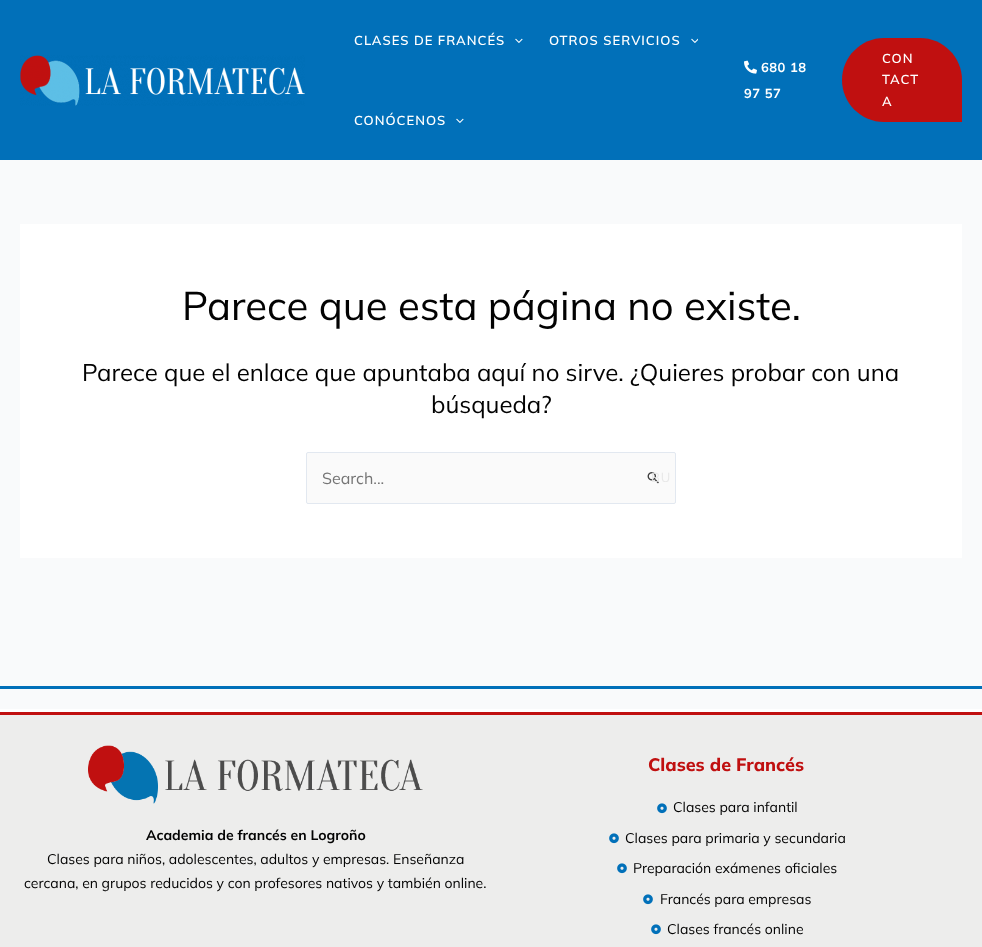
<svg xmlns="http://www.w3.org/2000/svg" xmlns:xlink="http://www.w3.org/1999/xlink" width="982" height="947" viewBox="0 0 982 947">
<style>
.cls-1{font:600 13px Mulish;letter-spacing:1px;fill:#ffffff}
.cls-2{font:bold 13px Mulish;letter-spacing:0.5px;fill:#ffffff}
.cls-3{font:40px Mulish;fill:#020202}
.cls-4{font:24px Mulish;fill:#020202}
.cls-5{font:16px Mulish;fill:#757575}
.cls-6{font:13px Mulish;letter-spacing:1px;fill:#e8e8e8}
.cls-7{font:bold 14px Mulish;fill:#020202}
.cls-8{font:14px Mulish;fill:#020202}
.cls-9{font:800 18px Mulish;fill:#c01010}
</style>
<rect width="100%" height="100%" fill="#f9fafb"/>
<rect fill="#0170b9" x="0" y="0" width="982" height="160"/>
<image xlink:href="image0.png" x="20" y="55" width="285" height="51"/>
<image xlink:href="image1.png" x="515" y="38" width="8" height="5"/>
<image xlink:href="image2.png" x="691" y="38" width="7" height="5"/>
<image xlink:href="image1.png" x="456" y="118" width="8" height="5"/>
<image xlink:href="image3.png" x="744" y="60" width="13" height="14"/>
<path fill="#c01010" d="M884 38H920C943 38 962 57 962 80V122H884C861 122 842 103 842 80C842 57 861 38 884 38Z"/>
<rect fill="#ffffff" x="20" y="224" width="942" height="334"/>
<rect fill="#fafafa" stroke="#e2e8f0" x="306.5" y="452.5" width="369" height="51" rx="1.5"/>
<image xlink:href="image4.png" x="647" y="472" width="12" height="12"/>
<rect fill="#0170b9" x="0" y="686" width="982" height="3"/>
<rect fill="#ffffff" x="0" y="709" width="982" height="3"/>
<rect fill="#ededec" x="0" y="715" width="982" height="232"/>
<rect fill="#c01010" x="0" y="712" width="982" height="3"/>
<image xlink:href="image5.png" x="88" y="745" width="335" height="59"/>
<image xlink:href="image6.png" x="657" y="803" width="10" height="11"/>
<image xlink:href="image6.png" x="609" y="833" width="10" height="11"/>
<image xlink:href="image6.png" x="617" y="863" width="10" height="11"/>
<image xlink:href="image6.png" x="643" y="894" width="10" height="11"/>
<image xlink:href="image6.png" x="651" y="924" width="10" height="11"/>
<text class="cls-1" x="354" y="45">CLASES DE FRANCÉS</text>
<text class="cls-1" x="549" y="45">OTROS SERVICIOS</text>
<text class="cls-1" x="354" y="125">CONÓCENOS</text>
<text class="cls-2" x="761" y="72">680 18</text>
<text class="cls-2" x="744" y="98">97 57</text>
<text class="cls-1"><tspan x="882" y="63">CON</tspan><tspan x="882" y="84">TACT</tspan><tspan x="882" y="106">A</tspan></text>
<text class="cls-3" x="182" y="320">Parece que esta página no existe.</text>
<text class="cls-4" x="82" y="381">Parece que el enlace que apuntaba aquí no sirve. ¿Quieres probar con una</text>
<text class="cls-4" x="431" y="413">búsqueda?</text>
<text class="cls-5" x="322" y="484">Search...</text>
<text class="cls-6" x="651" y="482">BU</text>
<text class="cls-7" x="146" y="840">Academia de francés en Logroño</text>
<text class="cls-8" x="47" y="864">Clases para niños, adolescentes, adultos y empresas. Enseñanza</text>
<text class="cls-8" x="24" y="888">cercana, en grupos reducidos y con profesores nativos y también online.</text>
<text class="cls-9" x="648" y="771">Clases de Francés</text>
<text class="cls-8" x="673" y="812">Clases para infantil</text>
<text class="cls-8" x="625" y="843">Clases para primaria y secundaria</text>
<text class="cls-8" x="633" y="873">Preparación exámenes oficiales</text>
<text class="cls-8" x="660" y="904">Francés para empresas</text>
<text class="cls-8" x="667" y="934">Clases francés online</text>
</svg>
